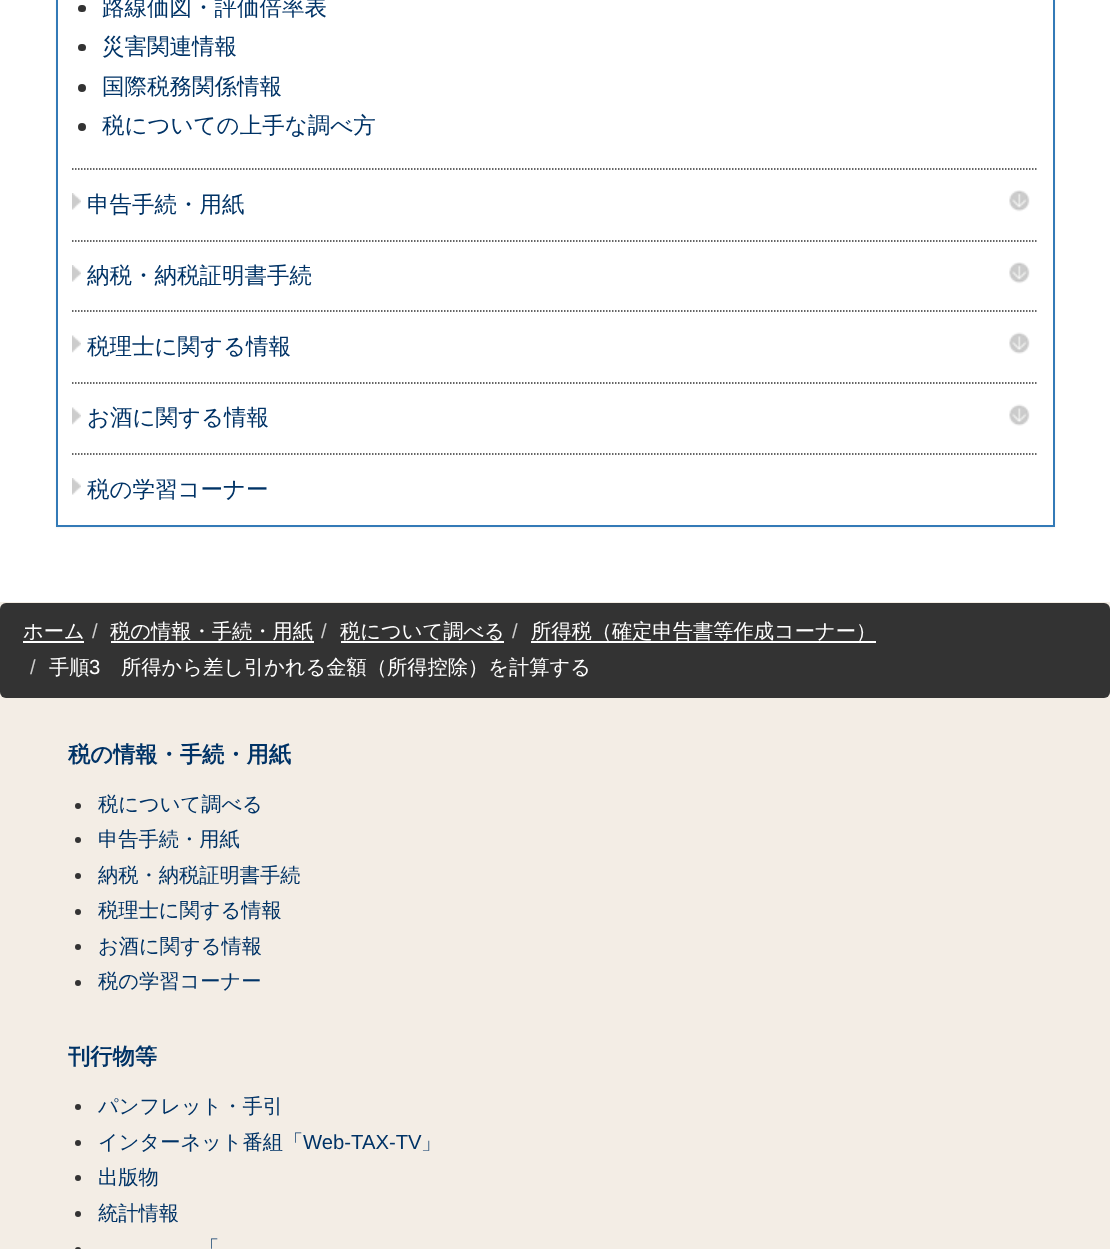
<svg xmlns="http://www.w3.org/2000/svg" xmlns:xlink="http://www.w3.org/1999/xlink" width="1110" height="1249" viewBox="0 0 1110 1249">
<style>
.cls-1{font:500 22.5px WenQuanYi Zen Hei;fill:#003366}
.cls-2{font:500 20.25px WenQuanYi Zen Hei;fill:#ffffff}
.cls-3{font:20.25px Liberation Sans;fill:#cccccc}
.cls-4{font:20.25px Liberation Sans;fill:#ffffff}
.cls-5{font:bold 22.25px WenQuanYi Zen Hei;fill:#003366}
.cls-6{font:500 20.25px WenQuanYi Zen Hei;fill:#003366}
.cls-7{font:20.25px Liberation Sans;fill:#003366}
</style>
<rect width="100%" height="100%" fill="#ffffff"/>
<rect fill="#000000" fill-opacity="0.05" filter="blur(1px)" x="56" y="-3" width="999" height="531"/>
<rect fill="#ffffff" stroke="#337ab7" stroke-width="2" x="57" y="-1" width="997" height="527"/>
<rect fill="#333333" x="78" y="5" width="8" height="7" rx="3.5"/>
<rect fill="#333333" x="78" y="44" width="8" height="7" rx="3.5"/>
<circle fill="#333333" cx="82" cy="88" r="4"/>
<circle fill="#333333" cx="82" cy="127" r="4"/>
<image xlink:href="image0.png" x="72" y="193" width="9" height="17"/>
<path fill="none" stroke="#333333" stroke-width="1.5" stroke-dasharray="1.5 1.5" d="M72 169H1038"/>
<image xlink:href="image1.png" x="1009" y="190" width="21" height="22"/>
<image xlink:href="image0.png" x="72" y="265" width="9" height="17"/>
<path fill="none" stroke="#333333" stroke-width="1.5" stroke-dasharray="1.5 1.5" d="M72 241H1038"/>
<image xlink:href="image1.png" x="1009" y="262" width="21" height="22"/>
<image xlink:href="image2.png" x="72" y="335" width="9" height="18"/>
<path fill="none" stroke="#333333" stroke-width="1.5" stroke-dasharray="1.5 1.5" d="M72 311H1038"/>
<image xlink:href="image3.png" x="1009" y="332" width="21" height="22"/>
<image xlink:href="image2.png" x="72" y="407" width="9" height="18"/>
<path fill="none" stroke="#333333" stroke-width="1.5" stroke-dasharray="1.5 1.5" d="M72 383H1038"/>
<image xlink:href="image3.png" x="1009" y="404" width="21" height="22"/>
<image xlink:href="image0.png" x="72" y="478" width="9" height="17"/>
<path fill="none" stroke="#333333" stroke-width="1.5" stroke-dasharray="1.5 1.5" d="M72 454H1038"/>
<rect fill="#f3ede5" x="0" y="602" width="1110" height="647"/>
<rect fill="#333333" x="0" y="603" width="1110" height="95" rx="6"/>
<rect fill="#ffffff" x="23" y="641" width="61" height="2"/>
<rect fill="#ffffff" x="111" y="641" width="203" height="2"/>
<rect fill="#ffffff" x="341" y="641" width="163" height="2"/>
<rect fill="#ffffff" x="531" y="641" width="345" height="2"/>
<circle fill="#333333" cx="78" cy="806" r="3"/>
<circle fill="#333333" cx="78" cy="840" r="3"/>
<circle fill="#333333" cx="78" cy="876" r="3"/>
<circle fill="#333333" cx="78" cy="912" r="3"/>
<circle fill="#333333" cx="78" cy="947" r="3"/>
<circle fill="#333333" cx="78" cy="983" r="3"/>
<circle fill="#333333" cx="78" cy="1107" r="3"/>
<circle fill="#333333" cx="78" cy="1143" r="3"/>
<circle fill="#333333" cx="78" cy="1178" r="3"/>
<circle fill="#333333" cx="78" cy="1214" r="3"/>
<rect fill="#333333" x="75" y="1247" width="6" height="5" rx="3"/>
<text class="cls-1"><tspan x="102" y="15">路線価図・評価倍率表</tspan><tspan x="102" y="54">災害関連情報</tspan><tspan x="102" y="94">国際税務関係情報</tspan><tspan x="102" y="133">税についての上手な調べ方</tspan></text>
<text class="cls-1" x="87" y="212">申告手続・用紙</text>
<text class="cls-1" x="87" y="283">納税・納税証明書手続</text>
<text class="cls-1" x="87" y="354">税理士に関する情報</text>
<text class="cls-1" x="87" y="425">お酒に関する情報</text>
<text class="cls-1" x="87" y="497">税の学習コーナー</text>
<text class="cls-2" x="23" y="638">ホーム</text>
<text class="cls-3" x="92" y="638">/</text>
<text class="cls-2" x="110" y="638">税の情報・手続・用紙</text>
<text class="cls-3" x="321" y="638">/</text>
<text class="cls-2" x="340" y="638">税について調べる</text>
<text class="cls-3" x="512" y="638">/</text>
<text class="cls-2" x="531" y="638">所得税（確定申告書等作成コーナー）</text>
<text class="cls-3" x="30" y="674">/</text>
<text class="cls-2" x="49" y="674">手順</text>
<text class="cls-4" x="89" y="674">3</text>
<text class="cls-2" x="121" y="674">所得から差し引かれる金額（所得控除）を計算する</text>
<text class="cls-5" x="68" y="762">税の情報・手続・用紙</text>
<text class="cls-6"><tspan x="98" y="811">税について調べる</tspan><tspan x="98" y="846">申告手続・用紙</tspan><tspan x="98" y="882">納税・納税証明書手続</tspan><tspan x="98" y="917">税理士に関する情報</tspan><tspan x="98" y="953">お酒に関する情報</tspan><tspan x="98" y="988">税の学習コーナー</tspan></text>
<text class="cls-5" x="68" y="1064">刊行物等</text>
<text class="cls-6"><tspan x="98" y="1113">パンフレット・手引</tspan><tspan x="98" y="1149">インターネット番組「</tspan></text>
<text class="cls-7" x="303" y="1149">Web-TAX-TV</text>
<text class="cls-6" x="421" y="1149">」</text>
<text class="cls-6"><tspan x="98" y="1184">出版物</tspan><tspan x="98" y="1220">統計情報</tspan></text>
<text class="cls-6" x="199" y="1255">「</text>
</svg>
